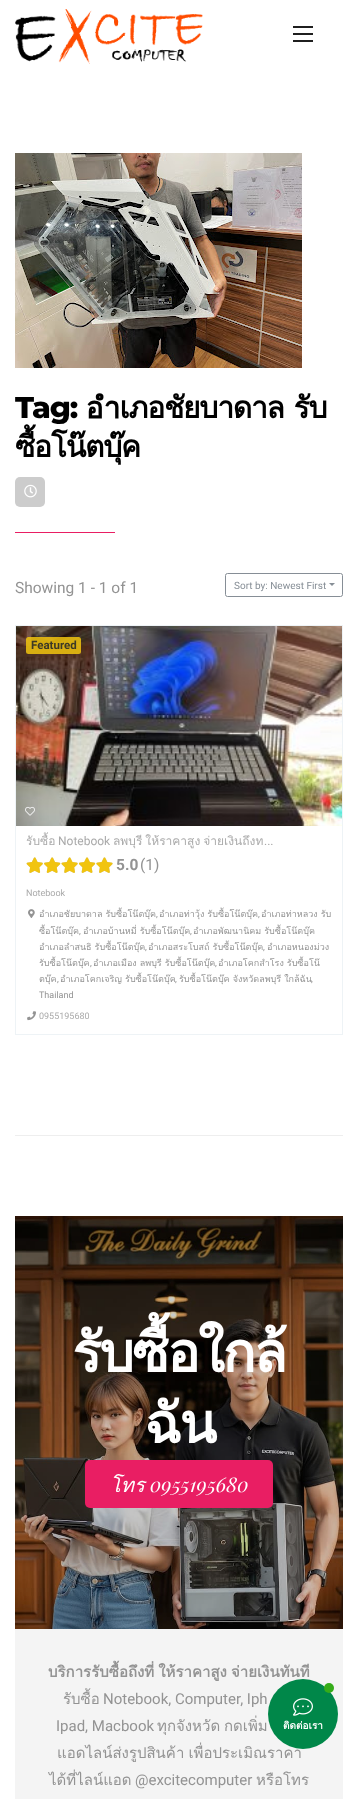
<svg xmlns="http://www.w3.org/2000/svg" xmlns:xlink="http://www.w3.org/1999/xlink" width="358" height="1799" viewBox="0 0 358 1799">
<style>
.cls-1{font:800 30px Montserrat;letter-spacing:-1.25px;fill:#000000}
.cls-2{font:bold 30px Loma;letter-spacing:-1.25px;fill:#000000}
.cls-3{font:15.5px Roboto;fill:#939393}
.cls-4{font:10px Roboto;fill:#868e96}
.cls-5{font:bold 11.5px Roboto;fill:#3c3926}
.cls-6{font:12px Loma;fill:#aaaaaa}
.cls-7{font:12px Roboto;fill:#aaaaaa}
.cls-8{font:bold 15.5px Roboto;fill:#939393}
.cls-9{font:9px Roboto;fill:#aaaaaa}
.cls-10{font:9px Loma;fill:#939393}
.cls-11{font:9px Roboto;fill:#939393}
.cls-12{font:bold 55px Loma;letter-spacing:-2.25px;fill:#ffffff}
.cls-13{font:italic 20px Loma;fill:#ffffff}
.cls-14{font:italic 20px Playfair Display;fill:#ffffff}
.cls-15{font:bold 15px Loma;fill:#939393}
.cls-16{font:15px Loma;fill:#939393}
.cls-17{font:15px Roboto;fill:#939393}
.cls-18{font:bold 10px Loma;fill:#ffffff}
</style>
<rect width="100%" height="100%" fill="#ffffff"/>
<image xlink:href="image0.png" x="15" y="9" width="188" height="55"/>
<rect fill="#1f1f1f" x="293" y="33" width="20" height="2"/>
<rect fill="#1f1f1f" x="293" y="26" width="20" height="2"/>
<rect fill="#1f1f1f" x="293" y="40" width="20" height="2"/>
<image xlink:href="image1.png" x="15" y="153" width="287" height="215"/>
<rect fill="#cccccc" x="15" y="477" width="30" height="30" rx="5"/>
<image xlink:href="image2.png" x="24" y="484" width="13" height="14"/>
<rect fill="#e91e63" x="15" y="532" width="100" height="1"/>
<rect fill="none" stroke="#868e96" x="225.5" y="573.5" width="117" height="23" rx="2"/>
<path fill="#868e96" d="M329 583H335L332 586Z"/>
<rect fill="none" stroke="#eef3f6" x="15.5" y="625.5" width="327" height="409"/>
<image xlink:href="image3.png" x="16" y="626" width="326" height="200"/>
<rect fill="#f1c40f" fill-opacity="0.85" x="26" y="637" width="55" height="17" rx="2.5"/>
<image xlink:href="image4.png" x="25" y="806" width="10" height="10"/>
<image xlink:href="image5.png" x="26" y="857" width="87" height="16"/>
<image xlink:href="image6.png" x="26" y="857" width="87" height="16"/>
<image xlink:href="image7.png" x="28" y="909" width="7" height="9"/>
<image xlink:href="image8.png" x="27" y="1011" width="9" height="10"/>
<rect fill="#eeeeee" x="15" y="1135" width="328" height="1"/>
<image xlink:href="image9.png" x="15" y="1216" width="328" height="413"/>
<rect fill="#e91e63" x="85" y="1460" width="188" height="48" rx="5"/>
<rect fill="#f4f4f4" x="15" y="1629" width="328" height="170"/>
<text class="cls-1" x="15" y="418">Tag:</text>
<text class="cls-2" x="86" y="418" word-spacing="1">อำเภอชัยบาดาล รับ</text>
<text class="cls-2" x="15" y="457">ซื้อโน๊ตบุ๊ค</text>
<text class="cls-3" x="15" y="593">Showing 1 - 1 of 1</text>
<text class="cls-4" x="234" y="589">Sort by: Newest First</text>
<text class="cls-5" x="31" y="649">Featured</text>
<text class="cls-6" x="26" y="845">รับซื้อ</text>
<text class="cls-7" x="58" y="845">Notebook</text>
<text class="cls-6" x="113" y="845" word-spacing="-1">ลพบุรี ให้ราคาสูง จ่ายเงินถึงท</text>
<text class="cls-7" x="264" y="845">...</text>
<text class="cls-8" x="116" y="870">5.0</text>
<text class="cls-3" x="140" y="870">(1)</text>
<text class="cls-9" x="26" y="896">Notebook</text>
<text class="cls-10" x="39" y="917">อำเภอชัยบาดาล รับซื้อโน๊ตบุ๊ค</text>
<text class="cls-11" x="156" y="917">,</text>
<text class="cls-10" x="159" y="917">อำเภอท่าวุ้ง รับซื้อโน๊ตบุ๊ค</text>
<text class="cls-11" x="258" y="917">,</text>
<text class="cls-10" x="261" y="917">อำเภอท่าหลวง รับ</text>
<text class="cls-10" x="39" y="934">ซื้อโน๊ตบุ๊ค</text>
<text class="cls-11" x="79" y="934">,</text>
<text class="cls-10" x="83" y="934">อำเภอบ้านหมี่ รับซื้อโน๊ตบุ๊ค</text>
<text class="cls-11" x="190" y="934">,</text>
<text class="cls-10" x="193" y="934">อำเภอพัฒนานิคม รับซื้อโน๊ตบุ๊ค</text>
<text class="cls-10" x="39" y="950">อำเภอลำสนธิ รับซื้อโน๊ตบุ๊ค</text>
<text class="cls-11" x="145" y="950">,</text>
<text class="cls-10" x="148" y="950">อำเภอสระโบสถ์ รับซื้อโน๊ตบุ๊ค</text>
<text class="cls-11" x="263" y="950">,</text>
<text class="cls-10" x="267" y="950">อำเภอหนองม่วง</text>
<text class="cls-10" x="39" y="966">รับซื้อโน๊ตบุ๊ค</text>
<text class="cls-11" x="90" y="966">,</text>
<text class="cls-10" x="93" y="966">อำเภอเมือง ลพบุรี รับซื้อโน๊ตบุ๊ค</text>
<text class="cls-11" x="215" y="966">,</text>
<text class="cls-10" x="218" y="966">อำเภอโคกสำโรง รับซื้อโน๊</text>
<text class="cls-10" x="39" y="982">ตบุ๊ค</text>
<text class="cls-11" x="57" y="982">,</text>
<text class="cls-10" x="60" y="982">อำเภอโคกเจริญ รับซื้อโน๊ตบุ๊ค</text>
<text class="cls-11" x="175" y="982">,</text>
<text class="cls-10" x="179" y="982">รับซื้อโน๊ตบุ๊ค จังหวัดลพบุรี ใกล้ฉัน</text>
<text class="cls-11" x="311" y="982">,</text>
<text class="cls-11" x="39" y="998">Thailand</text>
<text class="cls-9" x="39" y="1019">0955195680</text>
<text class="cls-12" x="72" y="1372">รับซื้อใกล้</text>
<text class="cls-12" x="144" y="1443">ฉัน</text>
<text class="cls-13" x="110" y="1492">โทร</text>
<text class="cls-14" x="150" y="1492">0955195680</text>
<text class="cls-15" x="48" y="1677" word-spacing="-1">บริการรับซื้อถึงที่ ให้ราคาสูง จ่ายเงินทันที</text>
<text class="cls-16" x="63" y="1704">รับซื้อ</text>
<text class="cls-17" x="103" y="1704">Notebook, Computer, Iph</text>
<text class="cls-17" x="56" y="1731">Ipad, Macbook</text>
<text class="cls-16" x="157" y="1731">ทุกจังหวัด</text>
<text class="cls-16" x="224" y="1731">กดเพิ่ม</text>
<text class="cls-16" x="57" y="1758" word-spacing="-1">แอดไลน์ส่งรูปสินค้า เพื่อประเมิณราคา</text>
<text class="cls-16" x="49" y="1785">ได้ที่ไลน์แอด</text>
<text class="cls-17" x="135" y="1785">@excitecomputer</text>
<text class="cls-16" x="256" y="1785">หรือโทร</text>
<circle fill="#008749" cx="303" cy="1714" r="35"/>
<circle fill="#35ac19" cx="329" cy="1688" r="5"/>
<image xlink:href="image10.png" x="293" y="1698" width="20" height="18"/>
<text class="cls-18" x="283" y="1729">ติดต่อเรา</text>
</svg>
